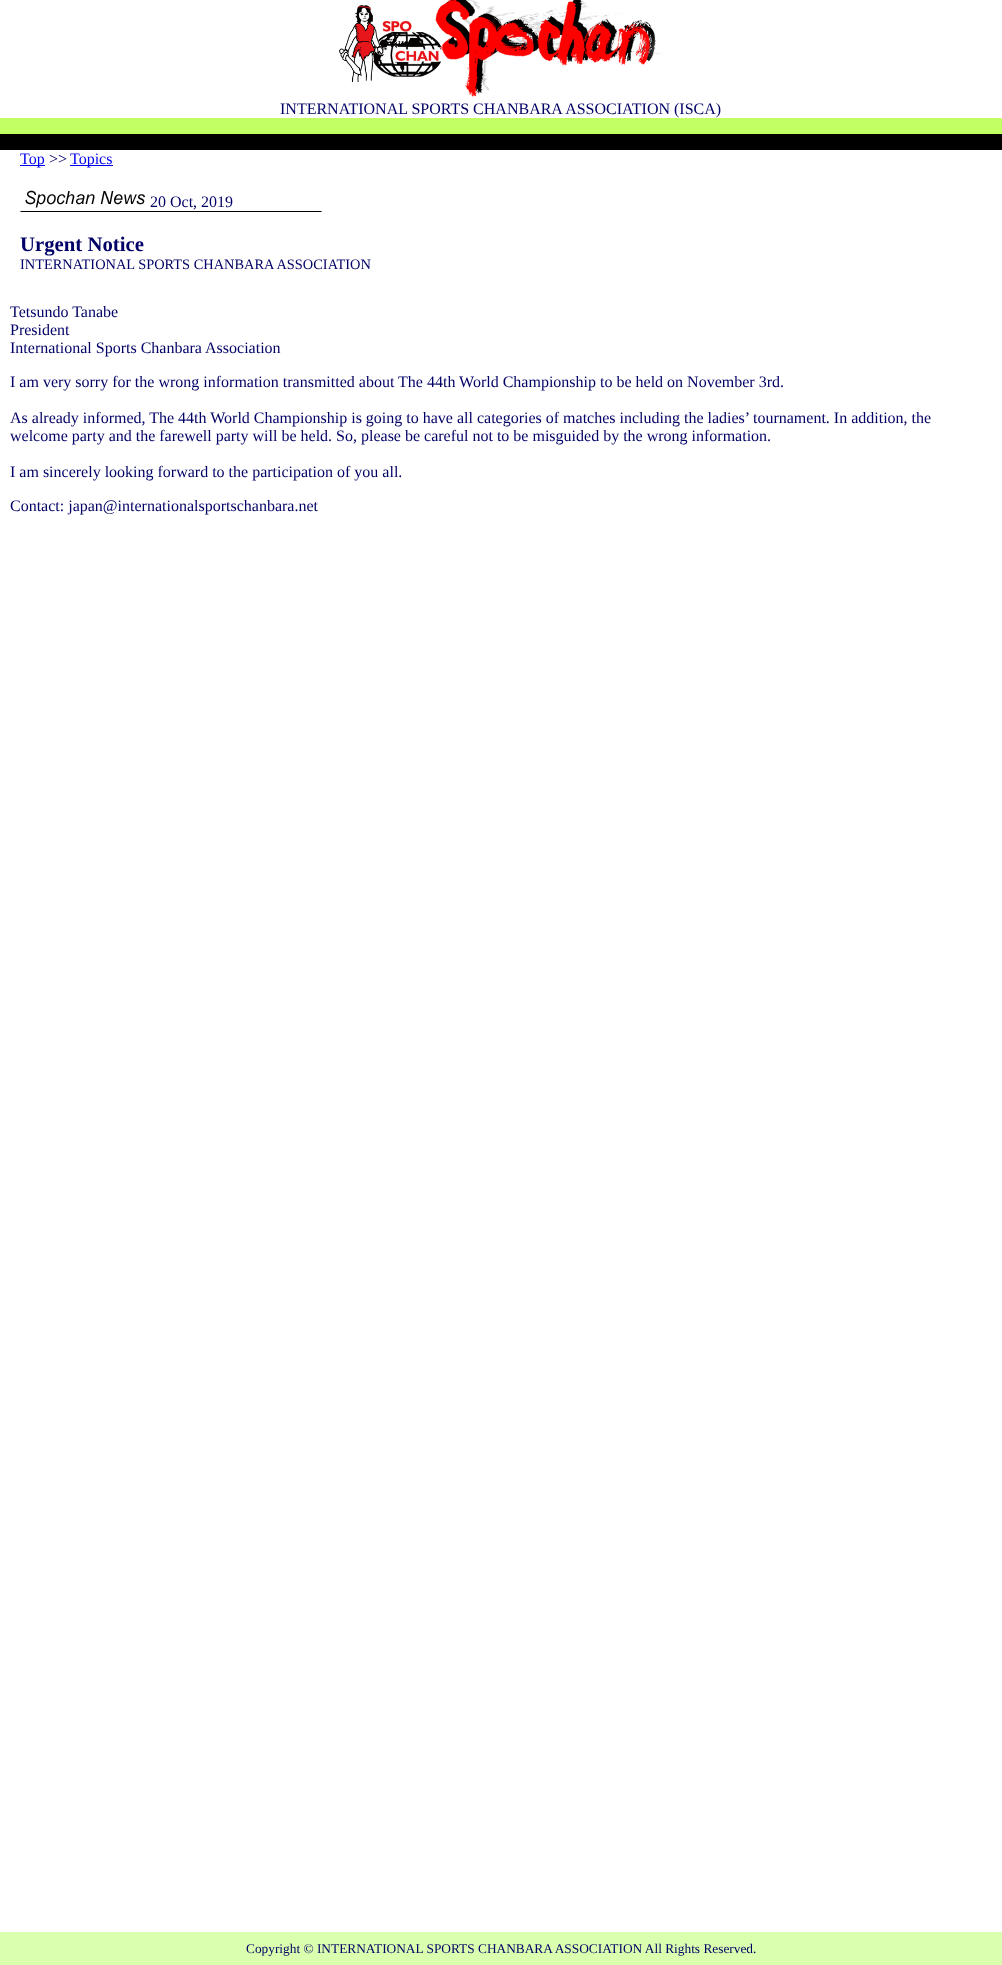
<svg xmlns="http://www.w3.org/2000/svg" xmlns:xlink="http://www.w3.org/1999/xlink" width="1002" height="1965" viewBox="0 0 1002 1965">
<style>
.cls-1{font:16px Liberation Serif;fill:#000066}
.cls-2{font:16px Liberation Serif;fill:#0000ee}
.cls-3{font:bold 20.75px Liberation Serif;fill:#000066}
.cls-4{font:14.4px Liberation Serif;fill:#000066}
.cls-5{font:13.35px Liberation Serif;fill:#000066}
</style>
<rect width="100%" height="100%" fill="#ffffff"/>
<image xlink:href="image0.png" x="339" y="0" width="326" height="97"/>
<rect fill="#c1ff64" x="0" y="118" width="1002" height="16"/>
<rect fill="#000000" x="0" y="134" width="1002" height="16"/>
<rect fill="#0000ee" x="20" y="165" width="25" height="1"/>
<rect fill="#0000ee" x="70" y="165" width="43" height="1"/>
<path fill="#000000" d="M322 212H20L21 211H321Z"/>
<image xlink:href="image1.png" x="25" y="190" width="120" height="18"/>
<rect fill="#daffae" x="0" y="1932" width="1002" height="33"/>
<text class="cls-1" x="280" y="114">INTERNATIONAL SPORTS CHANBARA ASSOCIATION (ISCA)</text>
<text class="cls-2" x="20" y="164">Top</text>
<text class="cls-1" x="49" y="164">&gt;&gt;</text>
<text class="cls-2" x="70" y="164">Topics</text>
<text class="cls-1" x="150" y="207">20 Oct, 2019</text>
<text class="cls-3" x="20" y="251">Urgent Notice</text>
<text class="cls-4" x="20" y="269">INTERNATIONAL SPORTS CHANBARA ASSOCIATION</text>
<text class="cls-1"><tspan x="10" y="317">Tetsundo Tanabe</tspan><tspan x="10" y="335">President</tspan><tspan x="10" y="353">International Sports Chanbara Association</tspan></text>
<text class="cls-1" x="10" y="387">I am very sorry for the wrong information transmitted about The 44th World Championship to be held on November 3rd.</text>
<text class="cls-1"><tspan x="10" y="423">As already informed, The 44th World Championship is going to have all categories of matches including the ladies’ tournament. In addition, the</tspan><tspan x="10" y="441">welcome party and the farewell party will be held. So, please be careful not to be misguided by the wrong information.</tspan></text>
<text class="cls-1" x="10" y="477">I am sincerely looking forward to the participation of you all.</text>
<text class="cls-1" x="10" y="511">Contact: japan@internationalsportschanbara.net</text>
<text class="cls-5" x="246" y="1953">Copyright © INTERNATIONAL SPORTS CHANBARA ASSOCIATION All Rights Reserved.</text>
</svg>
